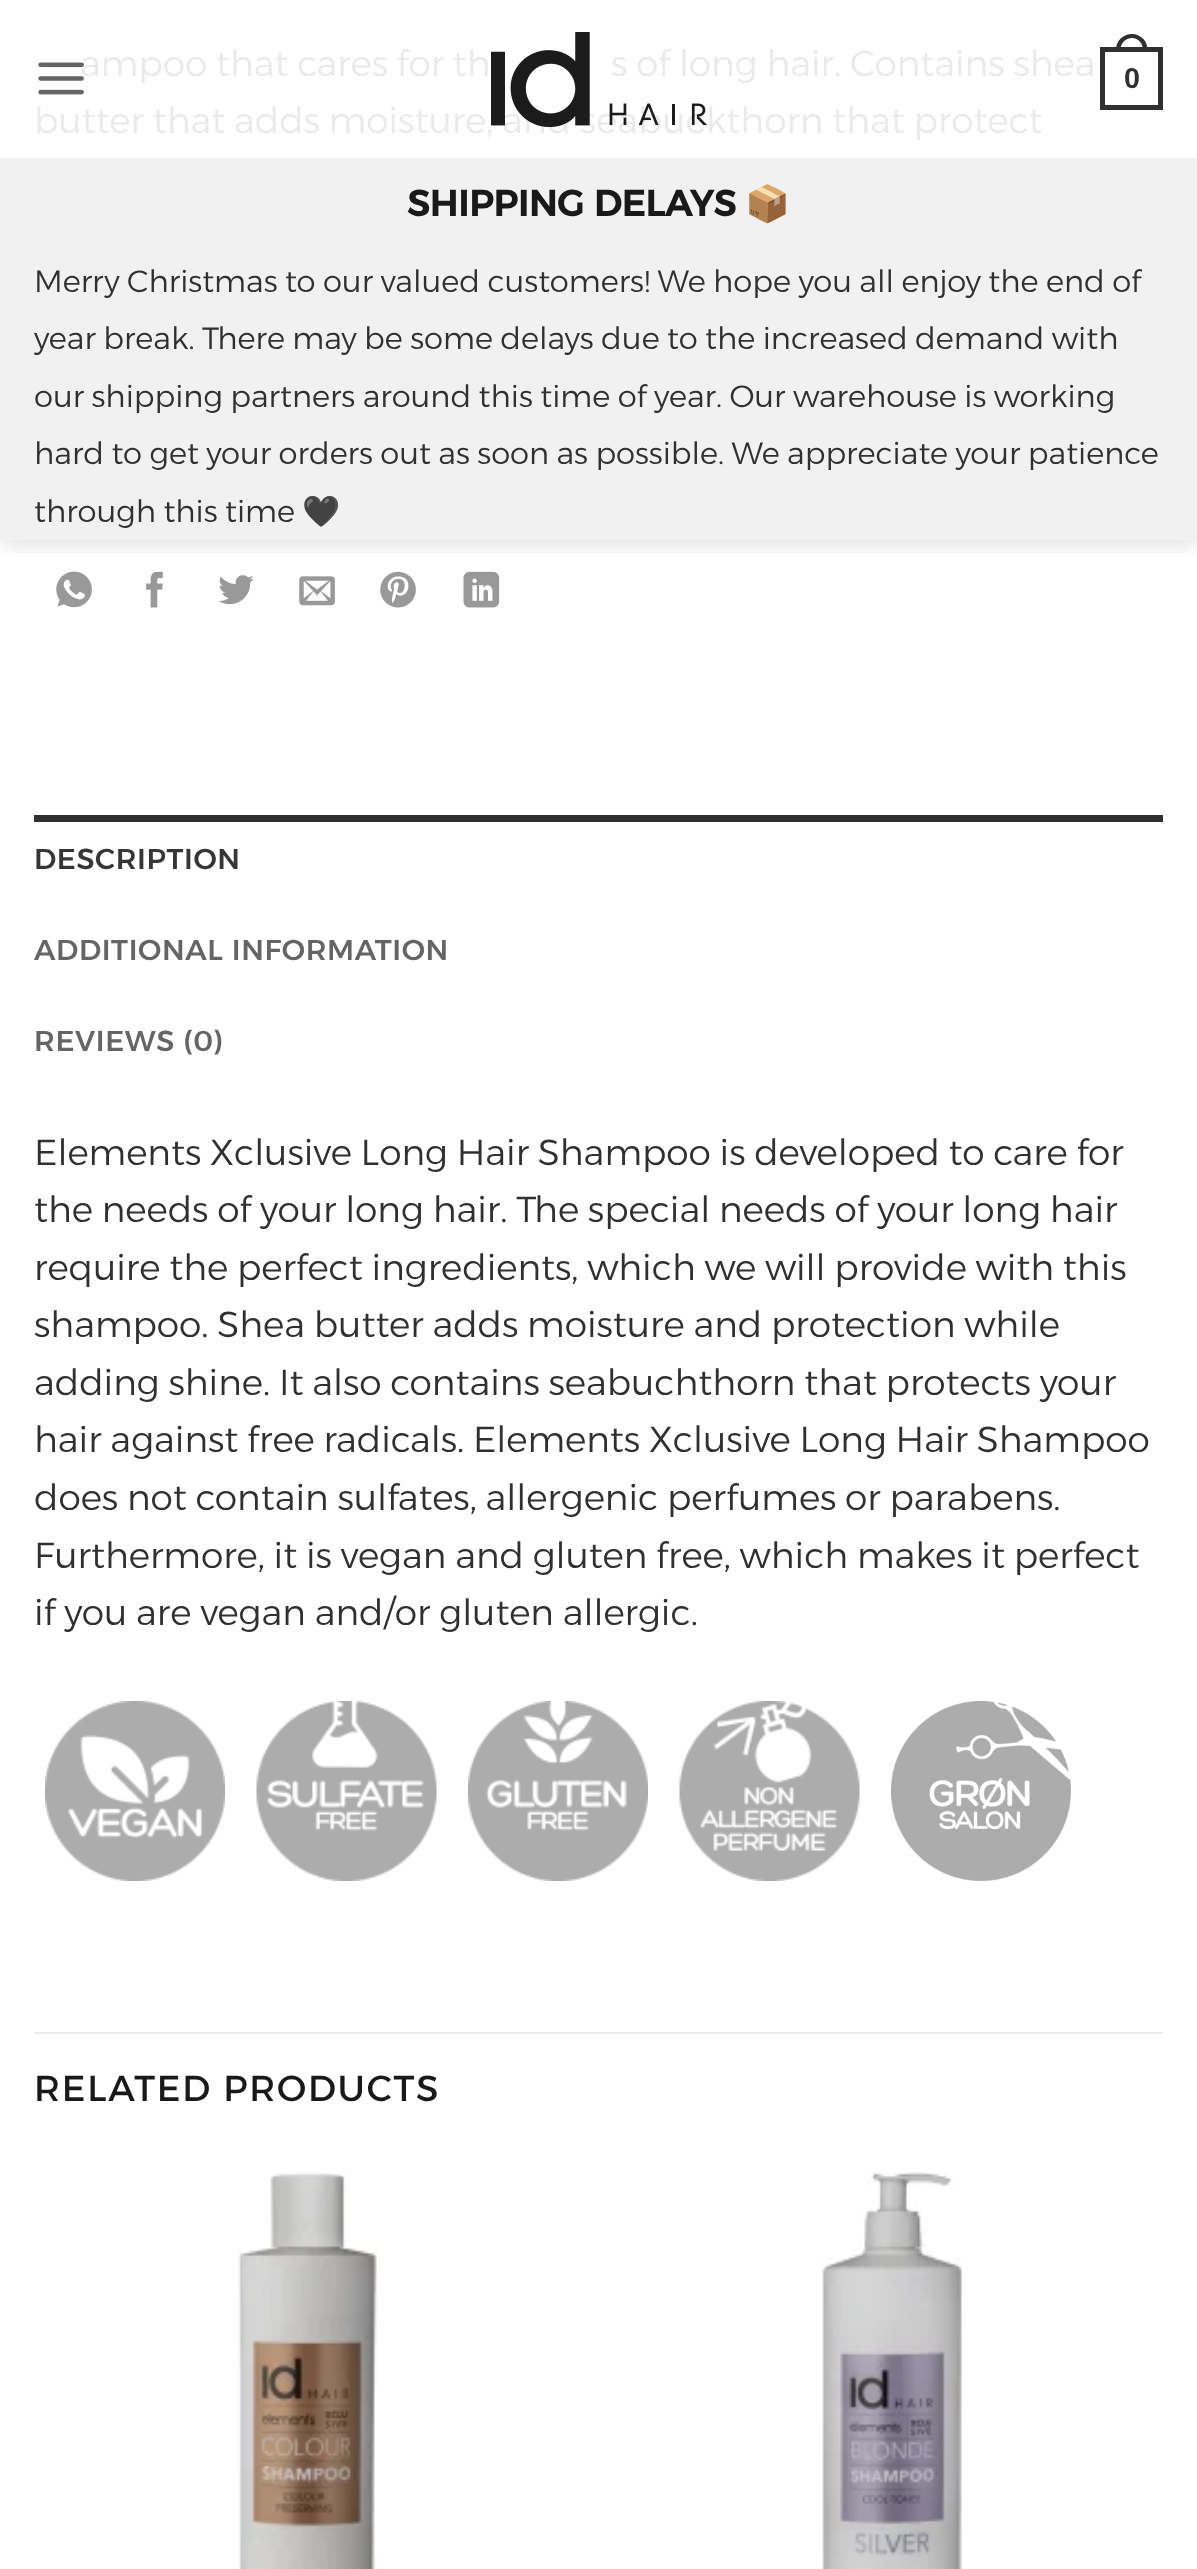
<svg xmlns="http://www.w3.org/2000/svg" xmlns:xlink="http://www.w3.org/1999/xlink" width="1197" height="2569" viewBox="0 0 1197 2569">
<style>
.cls-1{font:300 36px Alexandria;fill:#eaeaea}
.cls-2{font:500 28.75px Alexandria;letter-spacing:0.6px;fill:#363636}
.cls-3{font:500 28.75px Alexandria;letter-spacing:0.6px;fill:#656565}
.cls-4{font:300 36px Alexandria;fill:#303030}
.cls-5{font:36px Alexandria;letter-spacing:1.75px;fill:#191919}
.cls-6{font:bold 28.75px Liberation Sans;fill:#303030}
.cls-7{font:bold 36px Alexandria;fill:#191919}
.cls-8{font:bold 36px Noto Color Emoji;fill:#191919}
.cls-9{font:300 30.6px Alexandria;fill:#303030}
.cls-10{font:30.6px Noto Color Emoji;fill:#303030}
</style>
<defs>
<clipPath id="clip1"><rect x="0" y="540" width="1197" height="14"/></clipPath>
</defs>
<rect width="100%" height="100%" fill="#ffffff"/>
<image xlink:href="image0.png" x="56" y="571" width="36" height="37"/>
<image xlink:href="image1.png" x="146" y="571" width="17" height="37"/>
<image xlink:href="image2.png" x="218" y="575" width="36" height="30"/>
<image xlink:href="image3.png" x="299" y="576" width="36" height="30"/>
<image xlink:href="image4.png" x="380" y="571" width="36" height="37"/>
<image xlink:href="image5.png" x="463" y="571" width="37" height="37"/>
<rect fill="#303030" x="34" y="815" width="1129" height="7"/>
<image xlink:href="image6.png" x="45" y="1701" width="180" height="180"/>
<image xlink:href="image7.png" x="256" y="1701" width="181" height="180"/>
<image xlink:href="image8.png" x="468" y="1701" width="180" height="180"/>
<image xlink:href="image9.png" x="679" y="1701" width="181" height="180"/>
<image xlink:href="image10.png" x="891" y="1701" width="180" height="180"/>
<rect fill="#ececec" x="34" y="2032" width="1129" height="2"/>
<image xlink:href="image11.png" x="236" y="2170" width="141" height="399"/>
<image xlink:href="image12.png" x="822" y="2171" width="140" height="398"/>
<g clip-path="url(#clip1)">
<rect fill="#000000" fill-opacity="0.15" filter="blur(11px)" x="2" y="2" width="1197" height="540"/>
</g>
<rect fill="none" stroke="#303030" stroke-width="5" x="1102.5" y="49.5" width="58" height="58"/>
<path fill="#303030" fill-rule="evenodd" d="M1132 34C1140.5 34 1147.5 41 1147.5 49.5V52H1116V49.5C1116 41 1123 34 1132 34ZM1132 38C1138 38 1143 43.5 1143 49.5V52H1120.5V49.5C1120.5 43.5 1125.5 38 1132 38Z"/>
<rect fill="#f1f1f1" x="0" y="158" width="1197" height="382"/>
<text class="cls-1" x="80" y="76">ampoo that cares for th</text>
<text class="cls-1" x="611" y="76">s of long hair. Contains shea</text>
<text class="cls-1" x="34" y="133">butter that adds moisture, and seabuckthorn that protect</text>
<text class="cls-2" x="34" y="869">DESCRIPTION</text>
<text class="cls-3" x="34" y="960">ADDITIONAL INFORMATION</text>
<text class="cls-3" x="34" y="1051">REVIEWS (0)</text>
<text class="cls-4"><tspan x="34" y="1165">Elements Xclusive Long Hair Shampoo is developed to care for</tspan><tspan x="34" y="1222">the needs of your long hair. The special needs of your long hair</tspan><tspan x="34" y="1280">require the perfect ingredients, which we will provide with this</tspan><tspan x="34" y="1337">shampoo. Shea butter adds moisture and protection while</tspan><tspan x="34" y="1395">adding shine. It also contains seabuchthorn that protects your</tspan><tspan x="34" y="1452">hair against free radicals. Elements Xclusive Long Hair Shampoo</tspan><tspan x="34" y="1510">does not contain sulfates, allergenic perfumes or parabens.</tspan><tspan x="34" y="1568">Furthermore, it is vegan and gluten free, which makes it perfect</tspan><tspan x="34" y="1625">if you are vegan and/or gluten allergic.</tspan></text>
<text class="cls-5" x="34" y="2101">RELATED PRODUCTS</text>
<image xlink:href="image13.png" x="38" y="62" width="46" height="33"/>
<image xlink:href="image14.png" x="491" y="32" width="216" height="96"/>
<text class="cls-6" x="1124" y="88">0</text>
<text class="cls-7" x="407" y="216">SHIPPING DELAYS</text>
<text class="cls-8" x="745" y="216">📦</text>
<text class="cls-9"><tspan x="34" y="292">Merry Christmas to our valued customers! We hope you all enjoy the end of</tspan><tspan x="34" y="349">year break. There may be some delays due to the increased demand with</tspan><tspan x="34" y="407">our shipping partners around this time of year. Our warehouse is working</tspan><tspan x="34" y="464">hard to get your orders out as soon as possible. We appreciate your patience</tspan><tspan x="34" y="522">through this time</tspan></text>
<text class="cls-10" x="302" y="522">🖤</text>
</svg>
